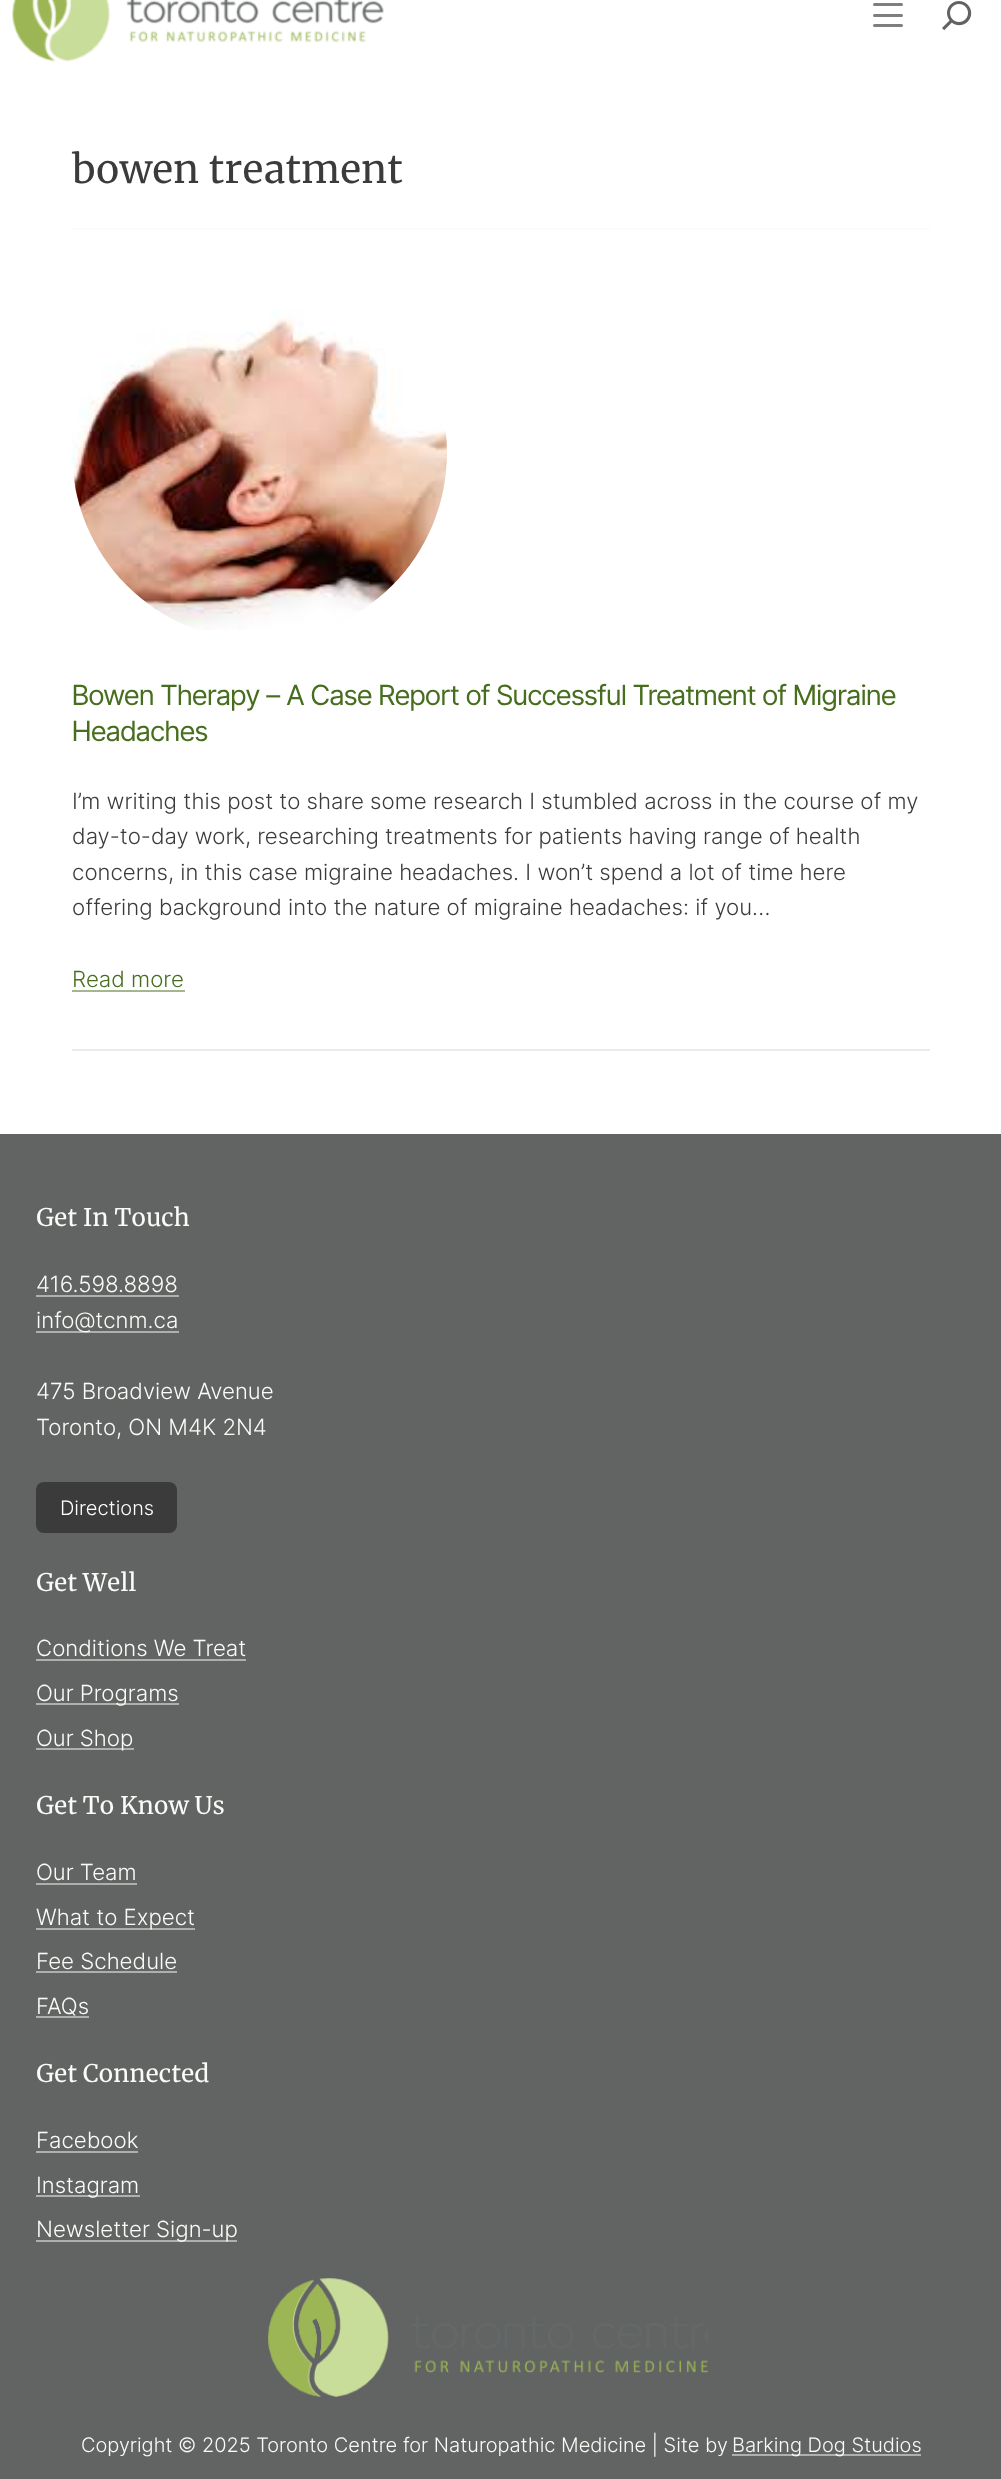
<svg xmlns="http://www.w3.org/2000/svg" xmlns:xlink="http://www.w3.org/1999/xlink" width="1001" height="2479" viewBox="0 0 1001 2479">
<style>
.cls-1{font:39px Merriweather;fill:#3b3b3b}
.cls-2{font:27.8px Inter Tight;fill:#476d1e}
.cls-3{font:300 22.25px Inter;fill:#3b3b3b}
.cls-4{font:300 22.25px Inter;fill:#476d1e}
.cls-5{font:24.25px Merriweather;fill:#fbfcf7}
.cls-6{font:300 22.25px Inter;fill:#fbfcf7}
.cls-7{font:300 20px Inter;fill:#ffffff}
.cls-8{font:300 20px Inter;fill:#fbfcf7}
</style>
<rect width="100%" height="100%" fill="#ffffff"/>
<image xlink:href="image0.png" x="12" y="0" width="372" height="62"/>
<rect fill="#7e7e7e" x="873" y="3" width="30" height="3" rx="1.5"/>
<rect fill="#7e7e7e" x="873" y="14" width="30" height="3" rx="1.5"/>
<rect fill="#7e7e7e" x="873" y="24" width="30" height="3" rx="1.5"/>
<image xlink:href="image1.png" x="942" y="1" width="30" height="30"/>
<rect fill="#fbfcf7" x="72" y="228" width="858" height="2"/>
<image xlink:href="image2.png" x="72" y="310" width="375" height="320"/>
<rect fill="#a3b68f" x="72" y="990" width="113" height="2"/>
<rect fill="#ebebeb" x="72" y="1049" width="858" height="2"/>
<rect fill="#626464" x="0" y="1134" width="1001" height="1345"/>
<rect fill="#afb0ae" x="36" y="1295" width="143" height="2"/>
<rect fill="#afb0ae" x="36" y="1331" width="143" height="2"/>
<rect fill="#3b3b3b" x="36" y="1482" width="141" height="51" rx="8"/>
<rect fill="#afb0ae" x="36" y="1659" width="210" height="2"/>
<rect fill="#afb0ae" x="36" y="1703" width="143" height="2"/>
<rect fill="#afb0ae" x="36" y="1748" width="98" height="2"/>
<rect fill="#afb0ae" x="36" y="1883" width="101" height="2"/>
<rect fill="#afb0ae" x="36" y="1928" width="159" height="2"/>
<rect fill="#afb0ae" x="36" y="1971" width="141" height="2"/>
<rect fill="#afb0ae" x="36" y="2016" width="53" height="2"/>
<rect fill="#afb0ae" x="36" y="2151" width="102" height="2"/>
<rect fill="#afb0ae" x="36" y="2195" width="104" height="2"/>
<rect fill="#afb0ae" x="36" y="2240" width="201" height="2"/>
<image xlink:href="image3.png" x="268" y="2278" width="440" height="119"/>
<rect fill="#afb0ae" x="732" y="2454" width="189" height="2"/>
<text class="cls-1" x="72" y="183">bowen treatment</text>
<text class="cls-2"><tspan x="72" y="705">Bowen Therapy – A Case Report of Successful Treatment of Migraine</tspan><tspan x="72" y="741">Headaches</tspan></text>
<text class="cls-3"><tspan x="72" y="809">I’m writing this post to share some research I stumbled across in the course of my</tspan><tspan x="72" y="844" word-spacing="-0.1">day-to-day work, researching treatments for patients having range of health</tspan><tspan x="72" y="880">concerns, in this case migraine headaches. I won’t spend a lot of time here</tspan><tspan x="72" y="915">offering background into the nature of migraine headaches: if you…</tspan></text>
<text class="cls-4" x="72" y="987">Read more</text>
<text class="cls-5" x="36" y="1226">Get In Touch</text>
<text class="cls-6"><tspan x="36" y="1292">416.598.8898</tspan><tspan x="36" y="1328">info@tcnm.ca</tspan></text>
<text class="cls-6"><tspan x="36" y="1399">475 Broadview Avenue</tspan><tspan x="36" y="1435">Toronto, ON M4K 2N4</tspan></text>
<text class="cls-7" x="60" y="1515">Directions</text>
<text class="cls-5" x="36" y="1591">Get Well</text>
<text class="cls-6" x="36" y="1656">Conditions We Treat</text>
<text class="cls-6" x="36" y="1701">Our Programs</text>
<text class="cls-6" x="36" y="1746">Our Shop</text>
<text class="cls-5" x="36" y="1814">Get To Know Us</text>
<text class="cls-6" x="36" y="1880">Our Team</text>
<text class="cls-6"><tspan x="36" y="1925">What to Expect</tspan><tspan x="36" y="1969">Fee Schedule</tspan></text>
<text class="cls-6" x="36" y="2014">FAQs</text>
<text class="cls-5" x="36" y="2082">Get Connected</text>
<text class="cls-6" x="36" y="2148">Facebook</text>
<text class="cls-6"><tspan x="36" y="2193">Instagram</tspan><tspan x="36" y="2237">Newsletter Sign-up</tspan></text>
<text class="cls-8" x="81" y="2452">Copyright © 2025 Toronto Centre for Naturopathic Medicine | Site by</text>
<text class="cls-8" x="732" y="2452">Barking Dog Studios</text>
</svg>
